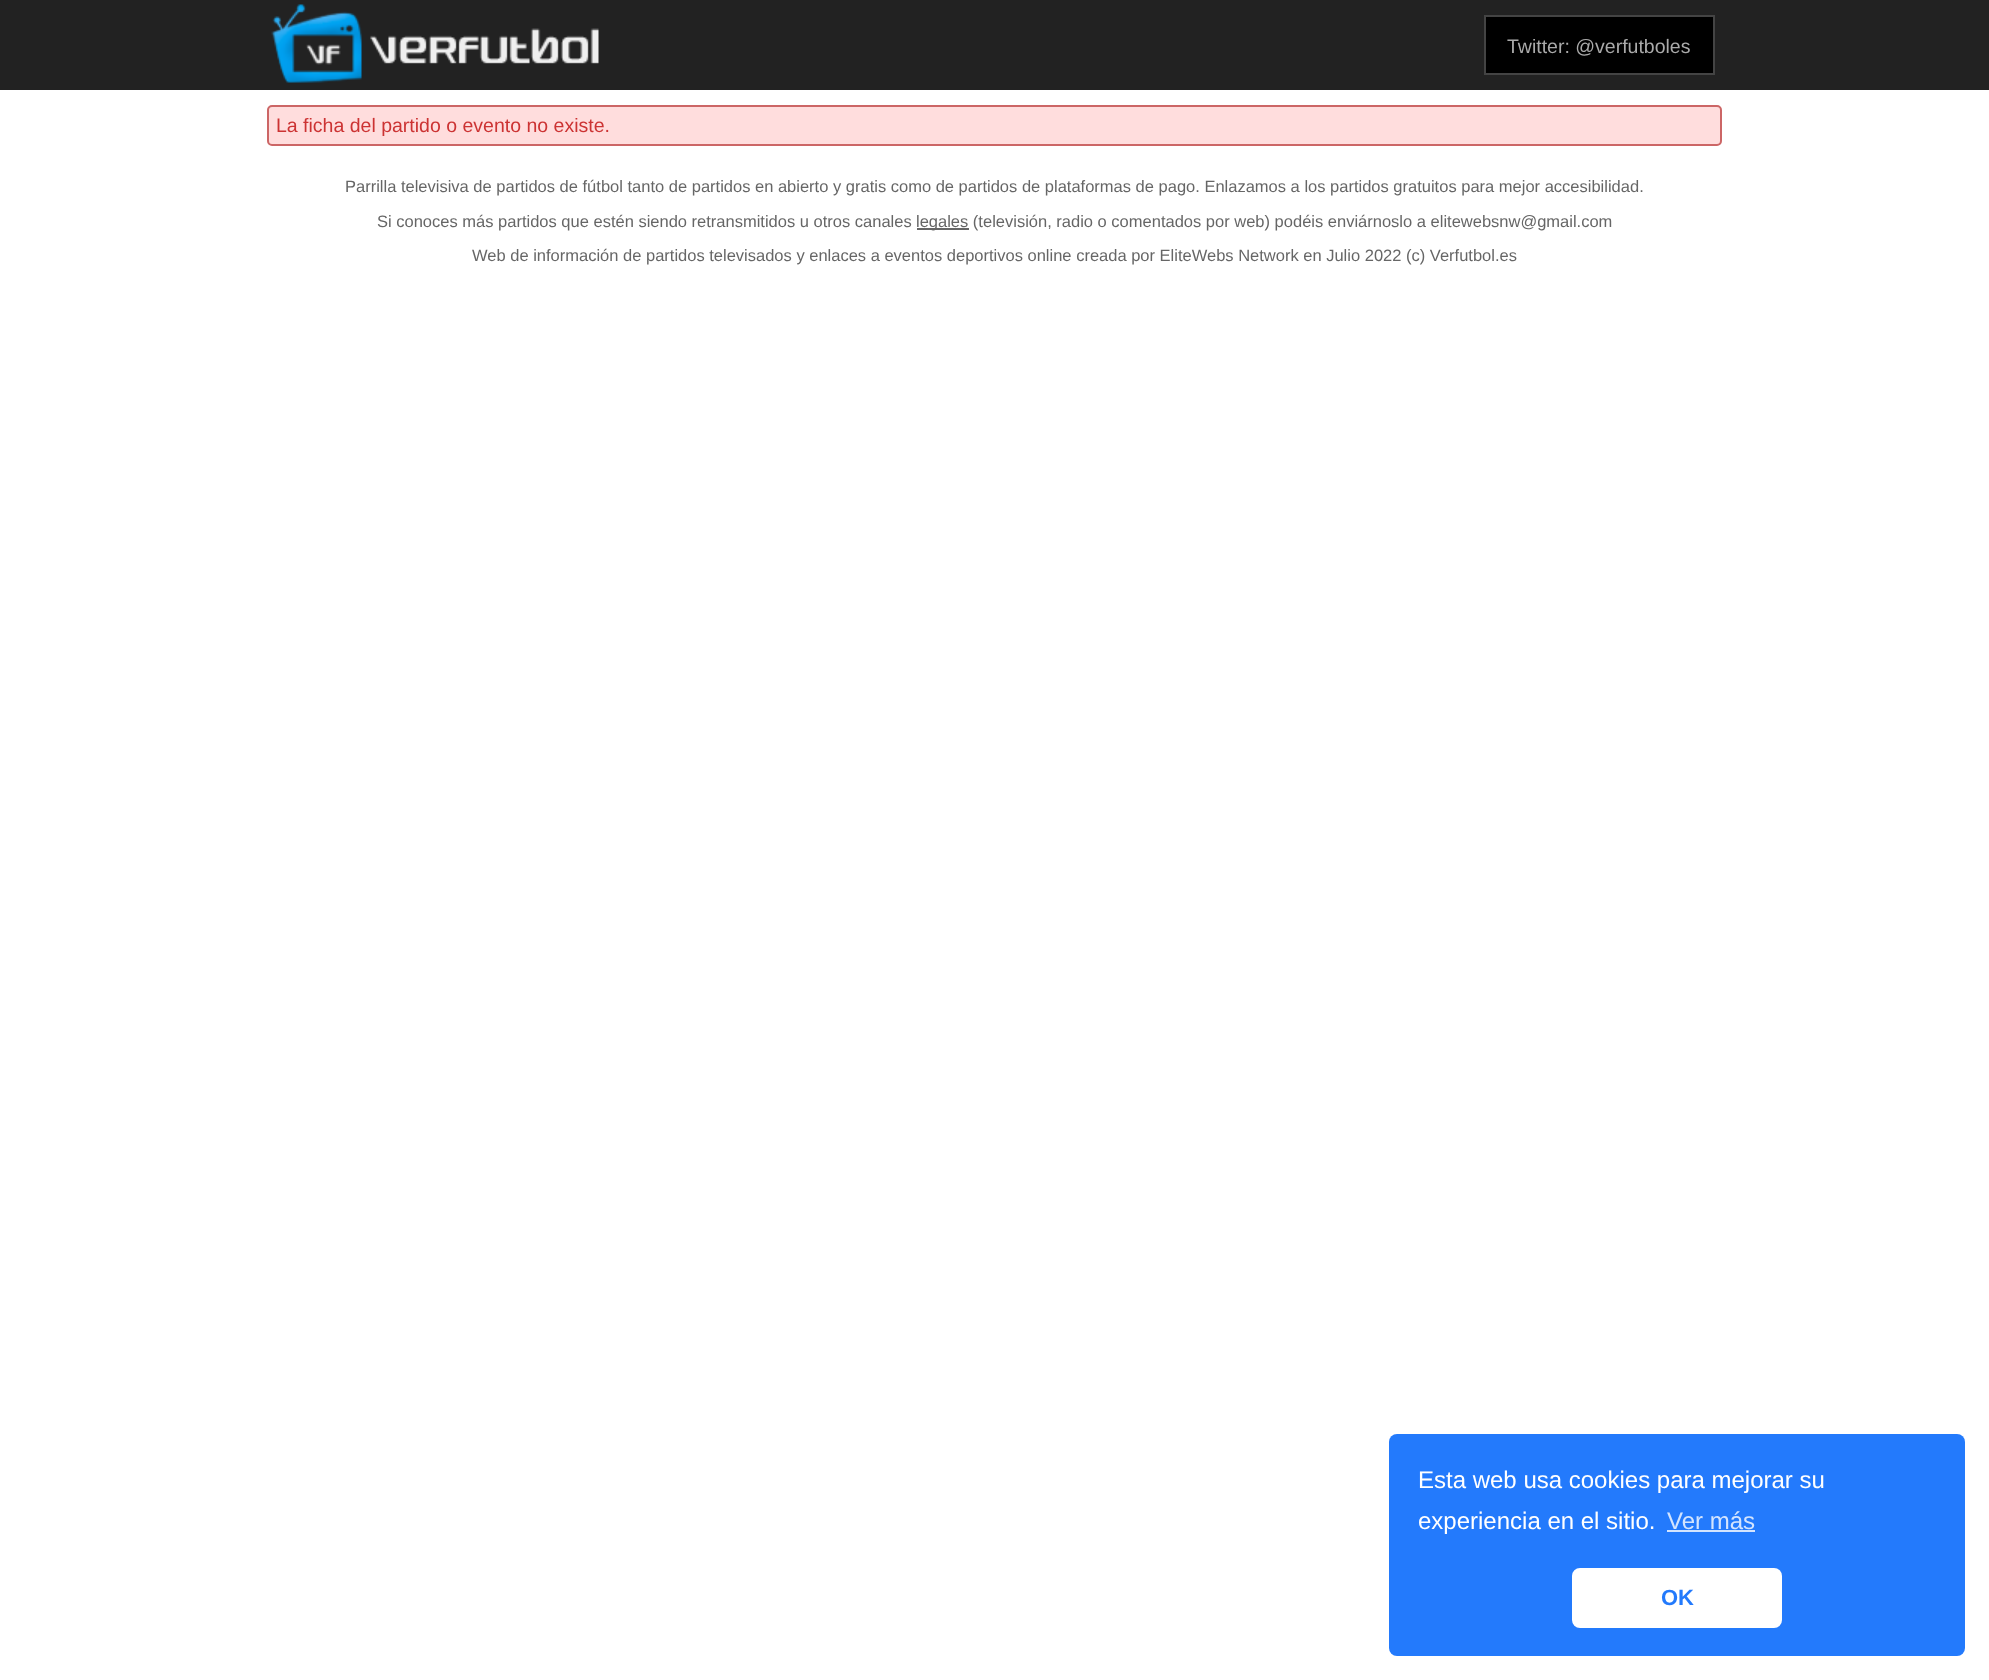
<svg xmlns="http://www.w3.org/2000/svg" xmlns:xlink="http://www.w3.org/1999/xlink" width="1989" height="1680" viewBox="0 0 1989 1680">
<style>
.cls-1{font:19.5px Liberation Sans;fill:#aaaaaa}
.cls-2{font:19.5px Liberation Sans;fill:#cc3333}
.cls-3{font:16.5px Liberation Sans;fill:#666666}
.cls-4{font:24px Liberation Sans;fill:#ffffff}
.cls-5{font:24px Liberation Sans;fill:#d3e4fe}
.cls-6{font:bold 22px Liberation Sans;fill:#237afc}
</style>
<rect width="100%" height="100%" fill="#ffffff"/>
<rect fill="#222222" x="0" y="0" width="1989" height="90"/>
<image xlink:href="image0.png" x="271" y="4" width="328" height="79"/>
<rect fill="#000000" stroke="#444444" stroke-width="2" x="1485" y="16" width="229" height="58"/>
<rect fill="#ffdddd" stroke="#cc6666" stroke-width="2" x="268" y="106" width="1453" height="39" rx="4"/>
<rect fill="#666666" x="917" y="228" width="52" height="2"/>
<rect fill="#237afc" x="1389" y="1434" width="576" height="222" rx="8"/>
<rect fill="#d3e4fe" x="1667" y="1530" width="88" height="2"/>
<rect fill="#ffffff" x="1572" y="1568" width="210" height="60" rx="8"/>
<text class="cls-1" x="1507" y="53">Twitter: @verfutboles</text>
<text class="cls-2" x="276" y="132">La ficha del partido o evento no existe.</text>
<text class="cls-3" x="345" y="192">Parrilla televisiva de partidos de fútbol tanto de partidos en abierto y gratis como de partidos de plataformas de pago. Enlazamos a los partidos gratuitos para mejor accesibilidad.</text>
<text class="cls-3" x="377" y="227">Si conoces más partidos que estén siendo retransmitidos u otros canales</text>
<text class="cls-3" x="916" y="227">legales (televisión, radio o comentados por web) podéis enviárnoslo a elitewebsnw@gmail.com</text>
<text class="cls-3" x="472" y="261">Web de información de partidos televisados y enlaces a eventos deportivos online creada por EliteWebs Network en Julio 2022 (c) Verfutbol.es</text>
<text class="cls-4"><tspan x="1418" y="1488">Esta web usa cookies para mejorar su</tspan><tspan x="1418" y="1529">experiencia en el sitio.</tspan></text>
<text class="cls-5" x="1667" y="1529">Ver más</text>
<text class="cls-6" x="1661" y="1605">OK</text>
</svg>
